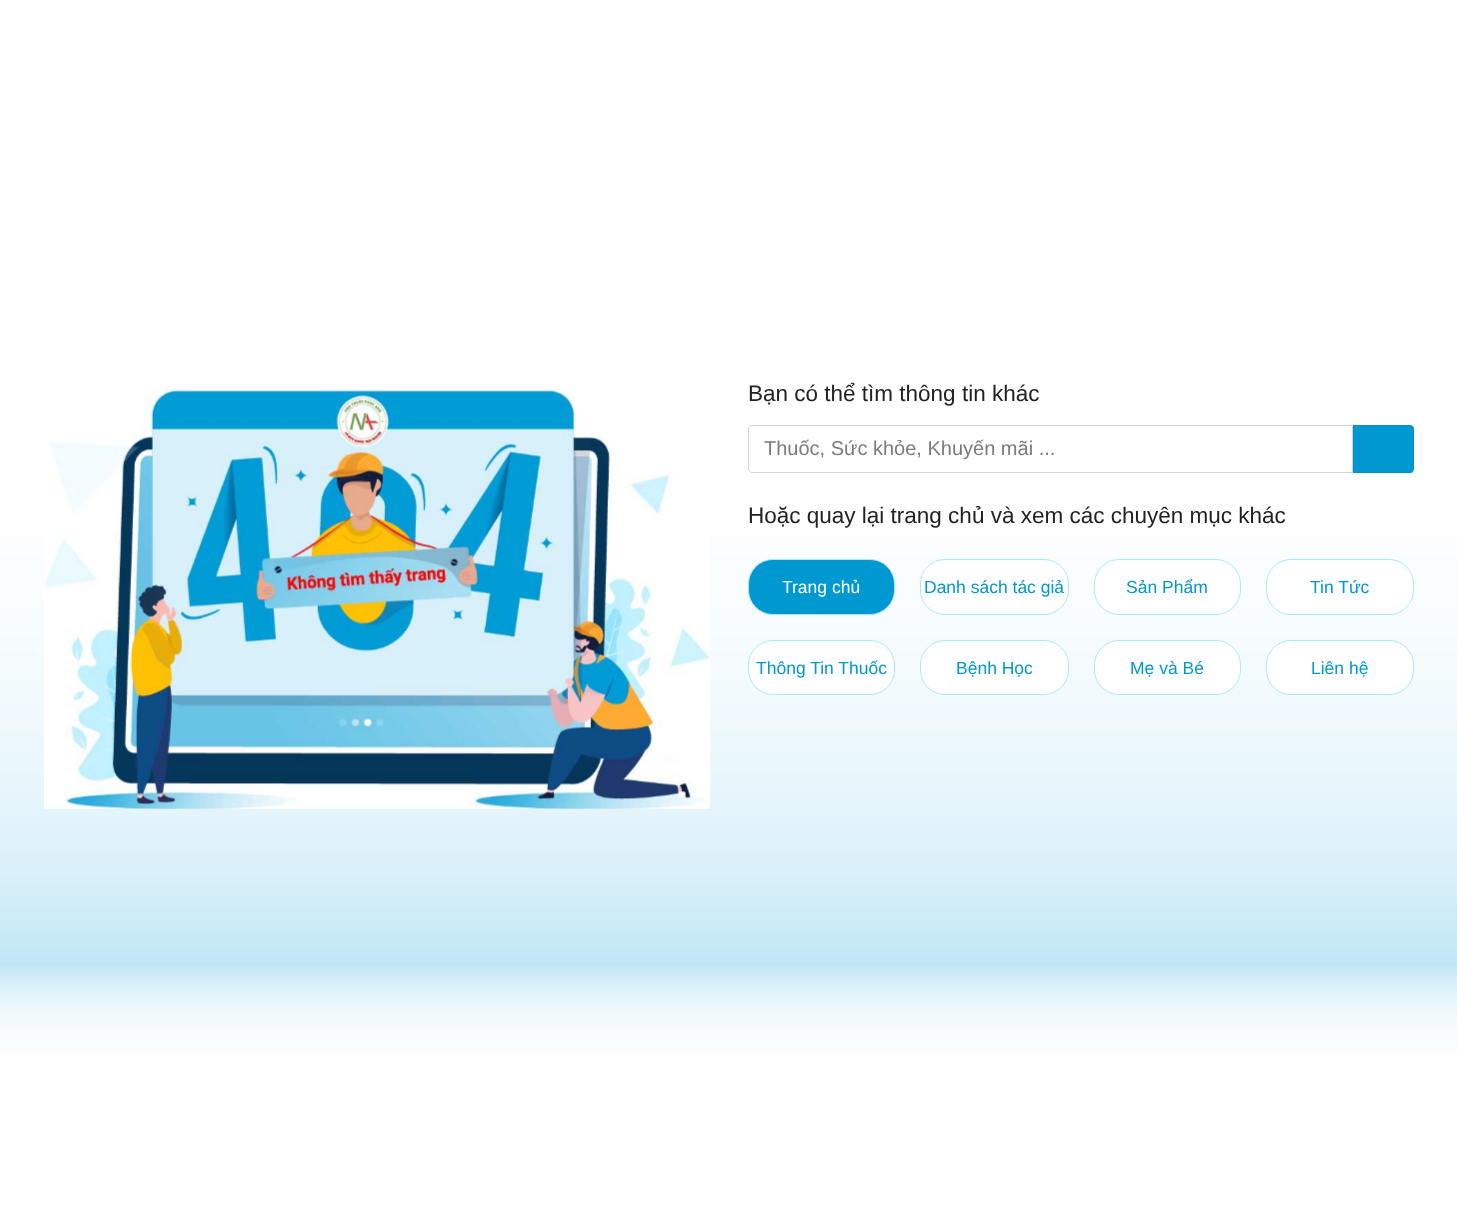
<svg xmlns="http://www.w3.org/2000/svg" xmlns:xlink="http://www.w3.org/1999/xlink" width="1457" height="1222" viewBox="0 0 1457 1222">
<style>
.cls-1{font:22.5px Liberation Sans;fill:#222222}
.cls-2{font:20px Liberation Sans;fill:#7b7b7b}
.cls-3{font:17.5px Liberation Sans;fill:#ffffff}
.cls-4{font:17.5px Liberation Sans;fill:#0098d1}
</style>
<rect width="100%" height="100%" fill="#ffffff"/>
<image xlink:href="image0.png" x="0" y="535" width="1457" height="519"/>
<image xlink:href="image1.png" x="44" y="387" width="667" height="422"/>
<path fill="none" stroke="#ced4da" d="M752 425.5H1352.5V472.5H752C750 472.5 748.5 471 748.5 469V429C748.5 427 750 425.5 752 425.5Z"/>
<path fill="#0098d1" d="M1353 425H1410C1412 425 1414 427 1414 429V469C1414 471 1412 473 1410 473H1353Z"/>
<rect fill="none" stroke="#000000" stroke-opacity="0.05" x="1353.5" y="425.5" width="60" height="47"/>
<rect fill="#0098d1" stroke="#aae8ff" x="748.5" y="559.5" width="146" height="55" rx="24.5"/>
<rect fill="#ffffff" stroke="#aae8ff" x="920.5" y="559.5" width="148" height="55" rx="24.5"/>
<rect fill="#ffffff" stroke="#aae8ff" x="1094.5" y="559.5" width="146" height="55" rx="24.5"/>
<rect fill="#ffffff" stroke="#aae8ff" x="1266.5" y="559.5" width="147" height="55" rx="24.5"/>
<rect fill="#ffffff" stroke="#aae8ff" x="748.5" y="640.5" width="146" height="54" rx="24.5"/>
<rect fill="#ffffff" stroke="#aae8ff" x="920.5" y="640.5" width="148" height="54" rx="24.5"/>
<rect fill="#ffffff" stroke="#aae8ff" x="1094.5" y="640.5" width="146" height="54" rx="24.5"/>
<rect fill="#ffffff" stroke="#aae8ff" x="1266.5" y="640.5" width="147" height="54" rx="24.5"/>
<text class="cls-1" x="748" y="401">Bạn có thể tìm thông tin khác</text>
<text class="cls-2" x="764" y="455">Thuốc, Sức khỏe, Khuyến mãi ...</text>
<text class="cls-1" x="748" y="523">Hoặc quay lại trang chủ và xem các chuyên mục khác</text>
<text class="cls-3" x="782" y="593">Trang chủ</text>
<text class="cls-4" x="924" y="593">Danh sách tác giả</text>
<text class="cls-4" x="1126" y="593">Sản Phẩm</text>
<text class="cls-4" x="1310" y="593">Tin Tức</text>
<text class="cls-4" x="756" y="674">Thông Tin Thuốc</text>
<text class="cls-4" x="956" y="674">Bệnh Học</text>
<text class="cls-4" x="1130" y="674">Mẹ và Bé</text>
<text class="cls-4" x="1311" y="674">Liên hệ</text>
</svg>
